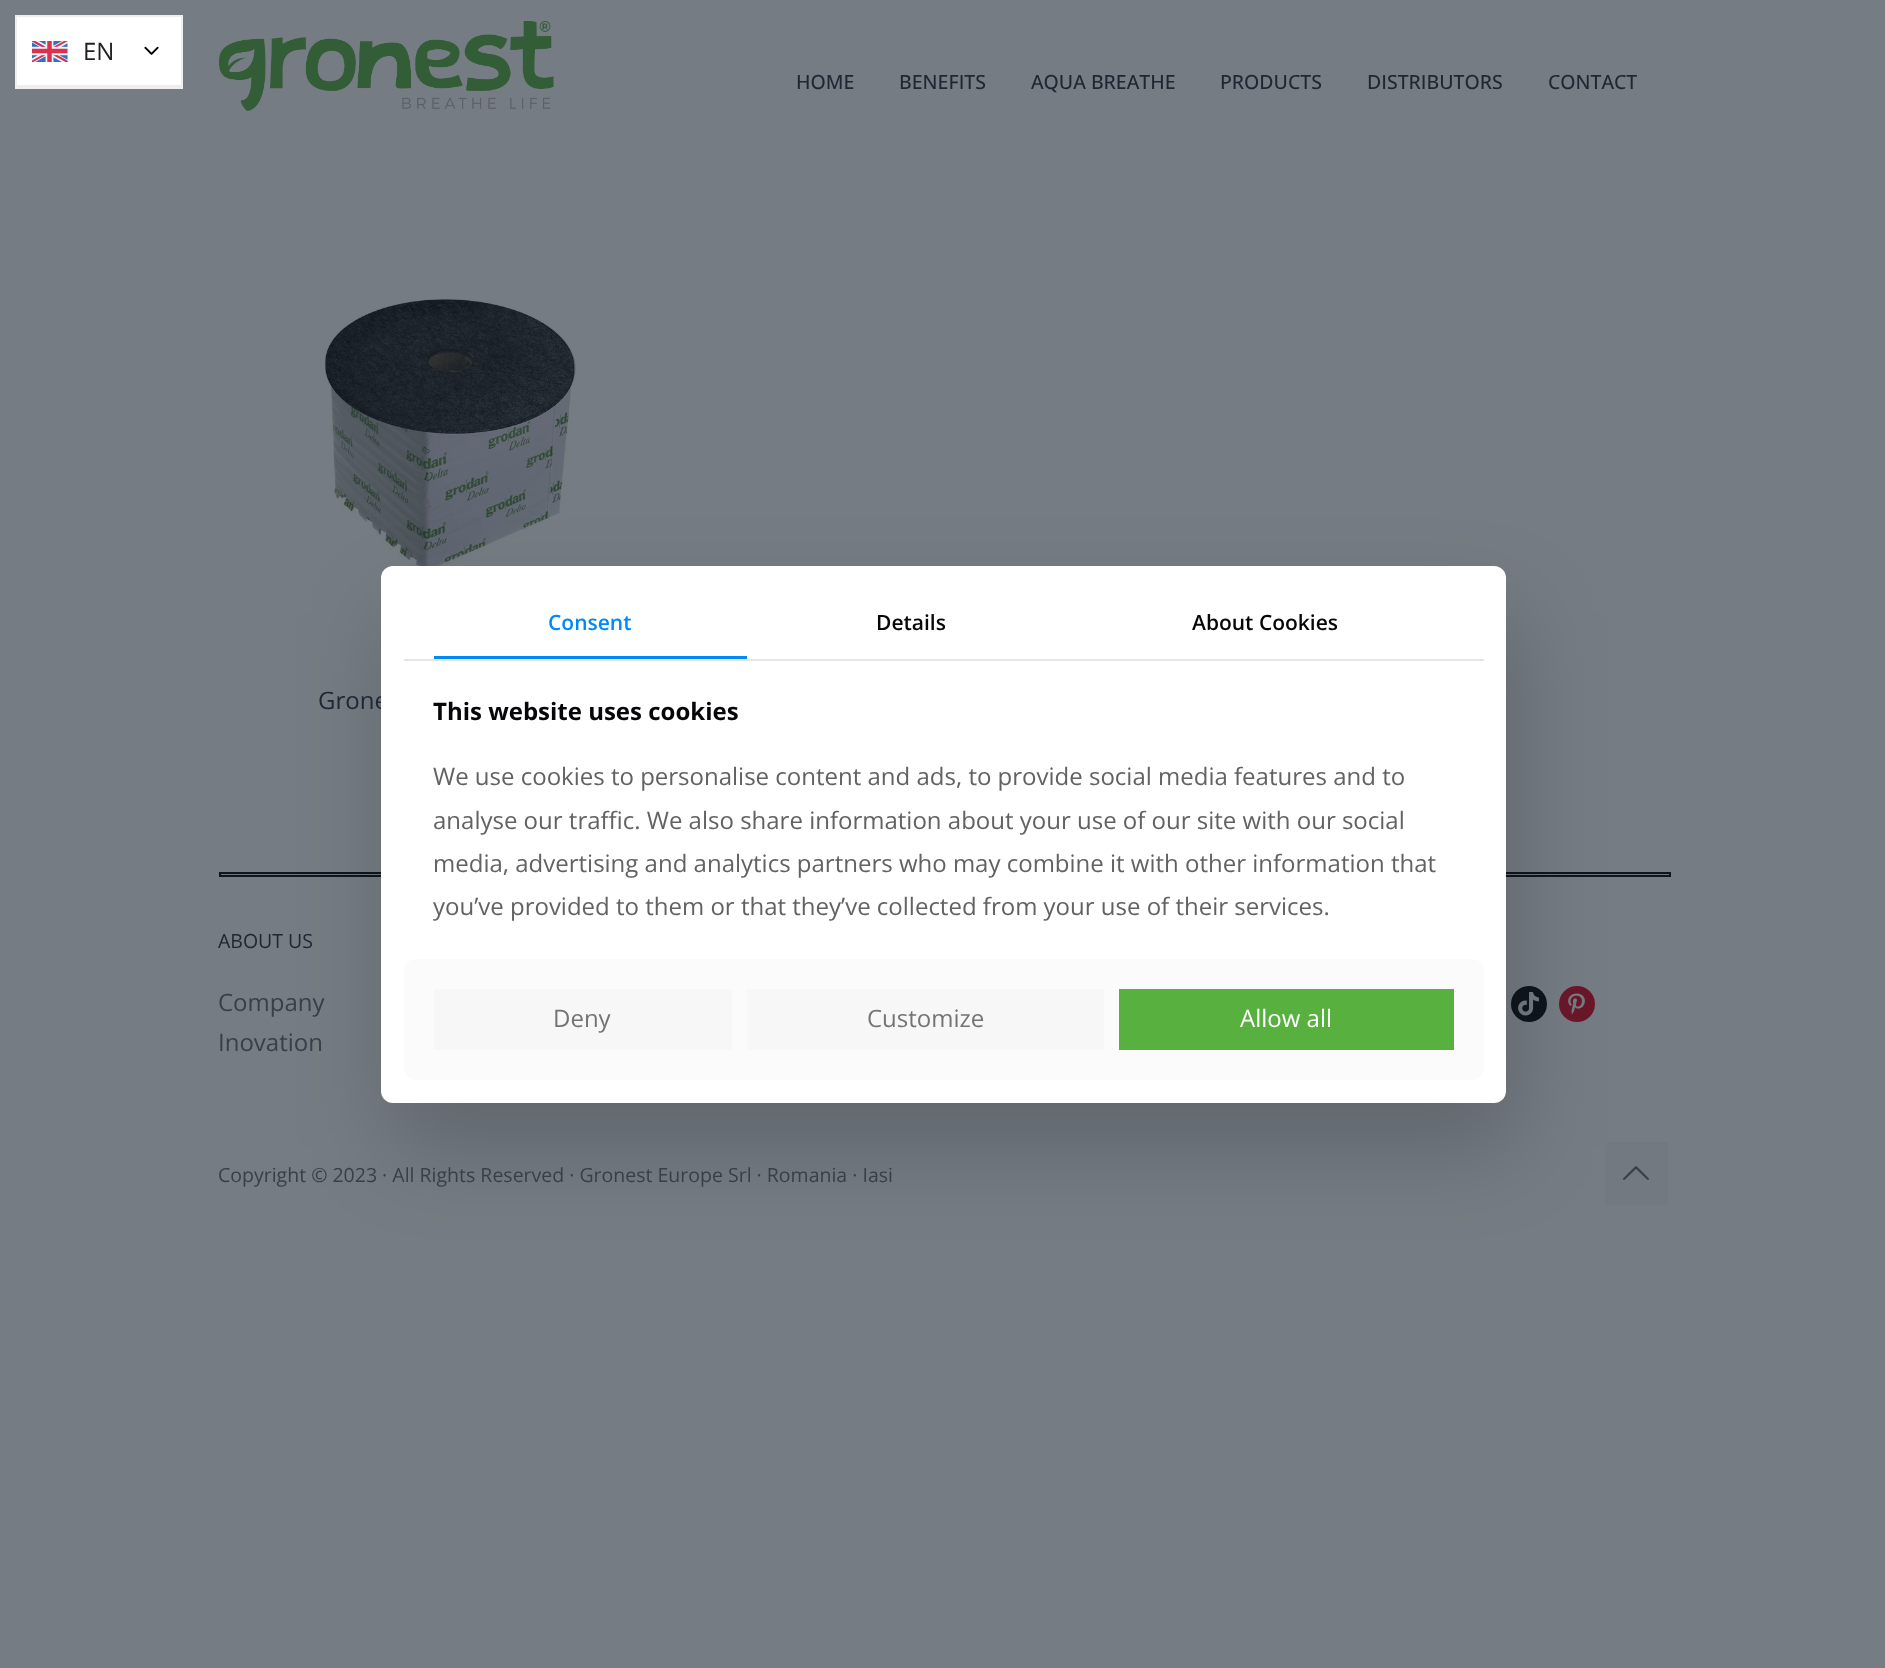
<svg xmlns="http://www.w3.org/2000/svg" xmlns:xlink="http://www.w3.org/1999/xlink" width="1885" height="1668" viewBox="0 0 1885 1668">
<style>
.cls-1{font:24px Open Sans;fill:#222222}
.cls-2{font:500 19.5px Open Sans;fill:#202734}
.cls-3{font:24px Open Sans;fill:#202734}
.cls-4{font:19.5px Open Sans;fill:#202734}
.cls-5{font:24px Open Sans;fill:#373f48}
.cls-6{font:19.5px Open Sans;fill:#373f48}
.cls-7{font:600 21px Open Sans;fill:#0089f7}
.cls-8{font:600 21px Open Sans;fill:#07070a}
.cls-9{font:bold 24px Open Sans;fill:#07070a}
.cls-10{font:24px Open Sans;fill:#626262}
.cls-11{font:24px Open Sans;fill:#747474}
.cls-12{font:24px Open Sans;fill:#ffffff}
</style>
<rect width="100%" height="100%" fill="#757c83"/>
<rect fill="#eeeeee" x="15" y="87" width="168" height="2"/>
<rect fill="#ffffff" stroke="#eeeeee" stroke-width="2" x="16" y="16" width="166" height="70"/>
<image xlink:href="image0.png" x="32" y="41" width="36" height="21"/>
<image xlink:href="image1.png" x="144" y="46" width="15" height="9"/>
<image xlink:href="image2.png" x="219" y="21" width="335" height="90"/>
<image xlink:href="image3.png" x="325" y="299" width="252" height="271"/>
<rect fill="#6d747b" stroke="#0f161d" stroke-width="2" x="220" y="873" width="1450" height="3"/>
<circle fill="#0f161d" cx="1529" cy="1004" r="18"/>
<image xlink:href="image4.png" x="1518" y="992" width="21" height="24"/>
<circle fill="#6b172a" cx="1577" cy="1004" r="18"/>
<image xlink:href="image5.png" x="1568" y="993" width="17" height="22"/>
<rect fill="#727980" x="1605" y="1142" width="63" height="63"/>
<image xlink:href="image6.png" x="1623" y="1166" width="26" height="14"/>
<rect fill="#000000" fill-opacity="0.18" filter="blur(45px)" x="390" y="611" width="1125" height="537" rx="12"/>
<text class="cls-1" x="83" y="60">EN</text>
<text class="cls-2" x="796" y="89">HOME</text>
<text class="cls-2" x="899" y="89">BENEFITS</text>
<text class="cls-2" x="1031" y="89">AQUA BREATHE</text>
<text class="cls-2" x="1220" y="89">PRODUCTS</text>
<text class="cls-2" x="1367" y="89">DISTRIBUTORS</text>
<text class="cls-2" x="1548" y="89">CONTACT</text>
<text class="cls-3" x="318" y="709">Grone</text>
<text class="cls-4" x="218" y="948">ABOUT US</text>
<text class="cls-5"><tspan x="218" y="1011">Company</tspan><tspan x="218" y="1051">Inovation</tspan></text>
<text class="cls-6" x="218" y="1182">Copyright © 2023 · All Rights Reserved · Gronest Europe Srl · Romania · Iasi</text>
<rect fill="#ffffff" x="381" y="566" width="1125" height="537" rx="12"/>
<rect fill="#e6e6e7" x="404" y="659" width="1080" height="2"/>
<text class="cls-7" x="548" y="630">Consent</text>
<rect fill="#0089f7" x="434" y="656" width="313" height="3"/>
<text class="cls-8" x="876" y="630">Details</text>
<text class="cls-8" x="1192" y="630">About Cookies</text>
<text class="cls-9" x="433" y="720">This website uses cookies</text>
<text class="cls-10"><tspan x="433" y="785">We use cookies to personalise content and ads, to provide social media features and to</tspan><tspan x="433" y="829">analyse our traffic. We also share information about your use of our site with our social</tspan><tspan x="433" y="872">media, advertising and analytics partners who may combine it with other information that</tspan><tspan x="433" y="915">you’ve provided to them or that they’ve collected from your use of their services.</tspan></text>
<rect fill="#fbfbfb" x="404" y="959" width="1080" height="121" rx="12"/>
<rect fill="#f7f7f7" x="434" y="989" width="298" height="61"/>
<text class="cls-11" x="553" y="1027">Deny</text>
<rect fill="#f7f7f7" x="747" y="989" width="357" height="61"/>
<text class="cls-11" x="867" y="1027">Customize</text>
<rect fill="#58b03f" x="1119" y="989" width="335" height="61"/>
<text class="cls-12" x="1240" y="1027">Allow all</text>
</svg>
